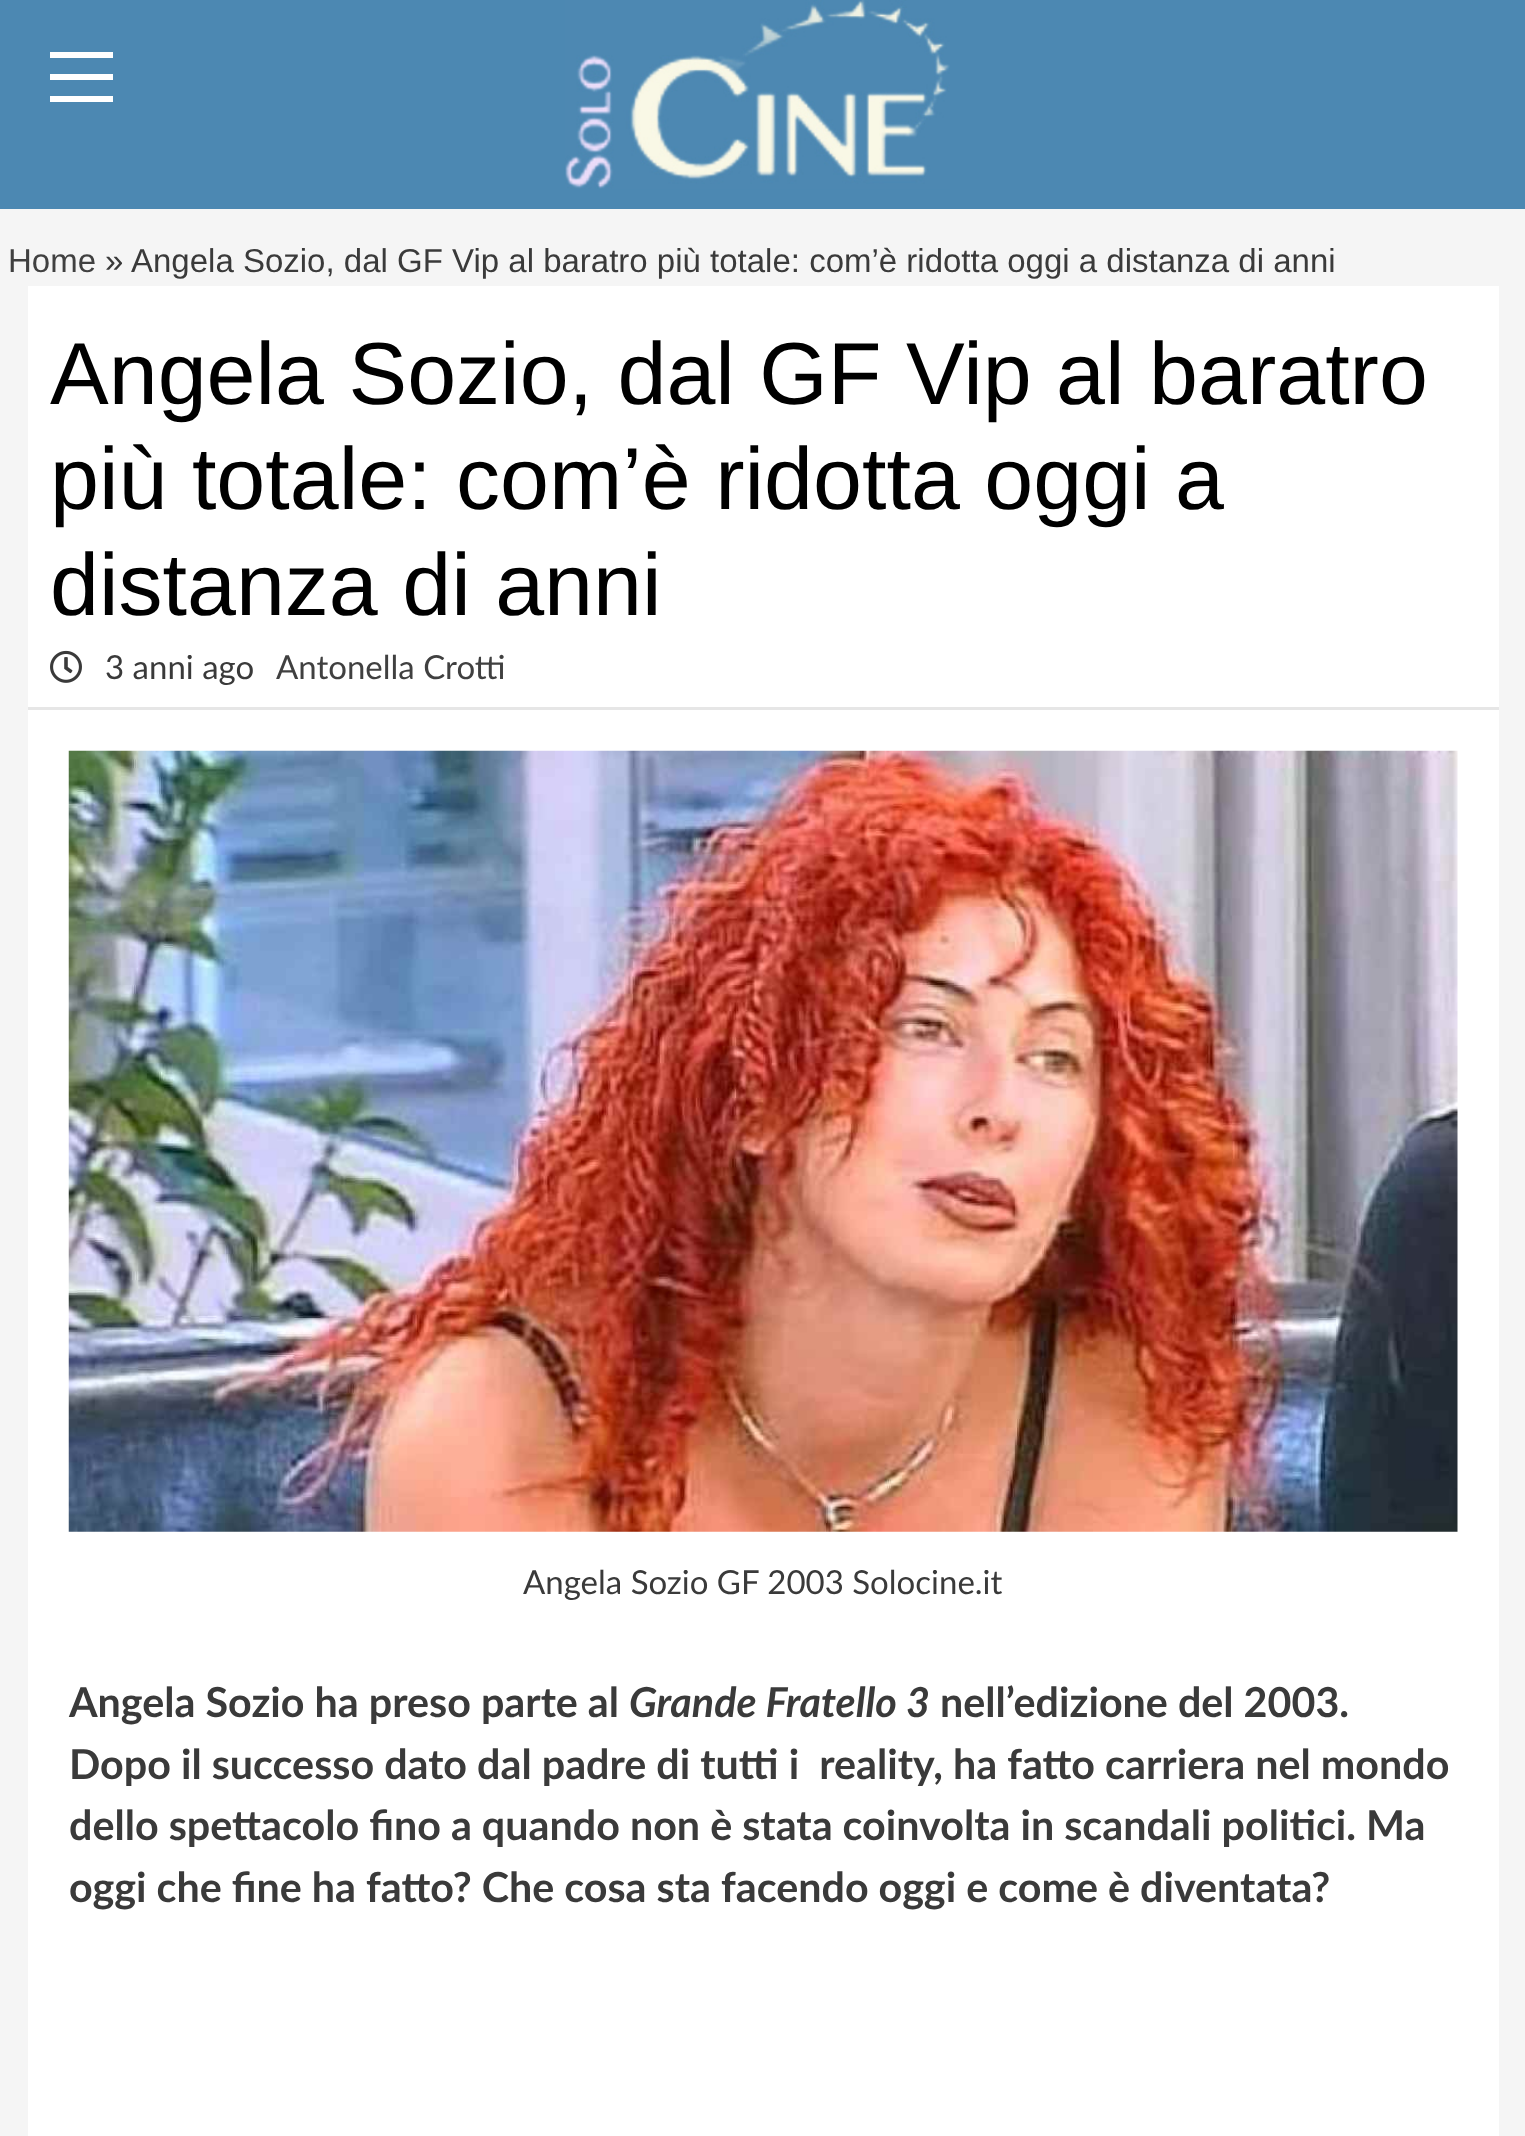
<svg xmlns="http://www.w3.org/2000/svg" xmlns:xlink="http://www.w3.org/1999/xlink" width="1525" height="2136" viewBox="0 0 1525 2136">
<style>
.cls-1{font:33px Liberation Sans;fill:#404040}
.cls-2{font:33px Liberation Sans;fill:#3a3a3a}
.cls-3{font:88px Liberation Sans;fill:#000000}
.cls-4{font:33px Lato;fill:#3a3a3a}
.cls-5{font:33px Lato;fill:#404040}
.cls-6{font:bold 41.25px Lato;fill:#3a3a3a}
.cls-7{font:italic bold 41.25px Lato;fill:#3a3a3a}
</style>
<rect width="100%" height="100%" fill="#f5f5f5"/>
<rect fill="#4c88b2" x="0" y="0" width="1525" height="209"/>
<image xlink:href="image0.png" x="565" y="0" width="385" height="189"/>
<rect fill="#ffffff" x="50" y="74" width="63" height="6"/>
<rect fill="#ffffff" x="50" y="52" width="63" height="6"/>
<rect fill="#ffffff" x="50" y="96" width="63" height="6"/>
<rect fill="#ffffff" x="28" y="286" width="1471" height="1850"/>
<rect fill="#e6e6e6" x="28" y="707" width="1471" height="3"/>
<image xlink:href="image1.png" x="50" y="650" width="32" height="33"/>
<image xlink:href="image2.png" x="68" y="750" width="1390" height="782"/>
<text class="cls-1" x="8" y="272">Home</text>
<text class="cls-2" x="105" y="272">»</text>
<text class="cls-2" x="131" y="272">Angela Sozio, dal GF Vip al baratro più totale: com’è ridotta oggi a distanza di anni</text>
<text class="cls-3"><tspan x="50" y="404">Angela Sozio, dal GF Vip al baratro</tspan><tspan x="50" y="509">più totale: com’è ridotta oggi a</tspan><tspan x="50" y="615">distanza di anni</tspan></text>
<text class="cls-4" x="105" y="679">3 anni ago</text>
<text class="cls-5" x="276" y="679">Antonella Crotti</text>
<text class="cls-4" x="523" y="1594">Angela Sozio GF 2003 Solocine.it</text>
<text class="cls-6" x="69" y="1717">Angela Sozio ha preso parte al</text>
<text class="cls-7" x="629" y="1717">Grande Fratello 3</text>
<text class="cls-6" x="940" y="1717">nell’edizione del 2003.</text>
<text class="cls-6" xml:space="preserve"><tspan x="69" y="1779">Dopo il successo dato dal padre di tutti i  reality, ha fatto carriera nel mondo</tspan><tspan x="69" y="1840">dello spettacolo fino a quando non è stata coinvolta in scandali politici. Ma</tspan><tspan x="69" y="1902">oggi che fine ha fatto? Che cosa sta facendo oggi e come è diventata?</tspan></text>
</svg>
